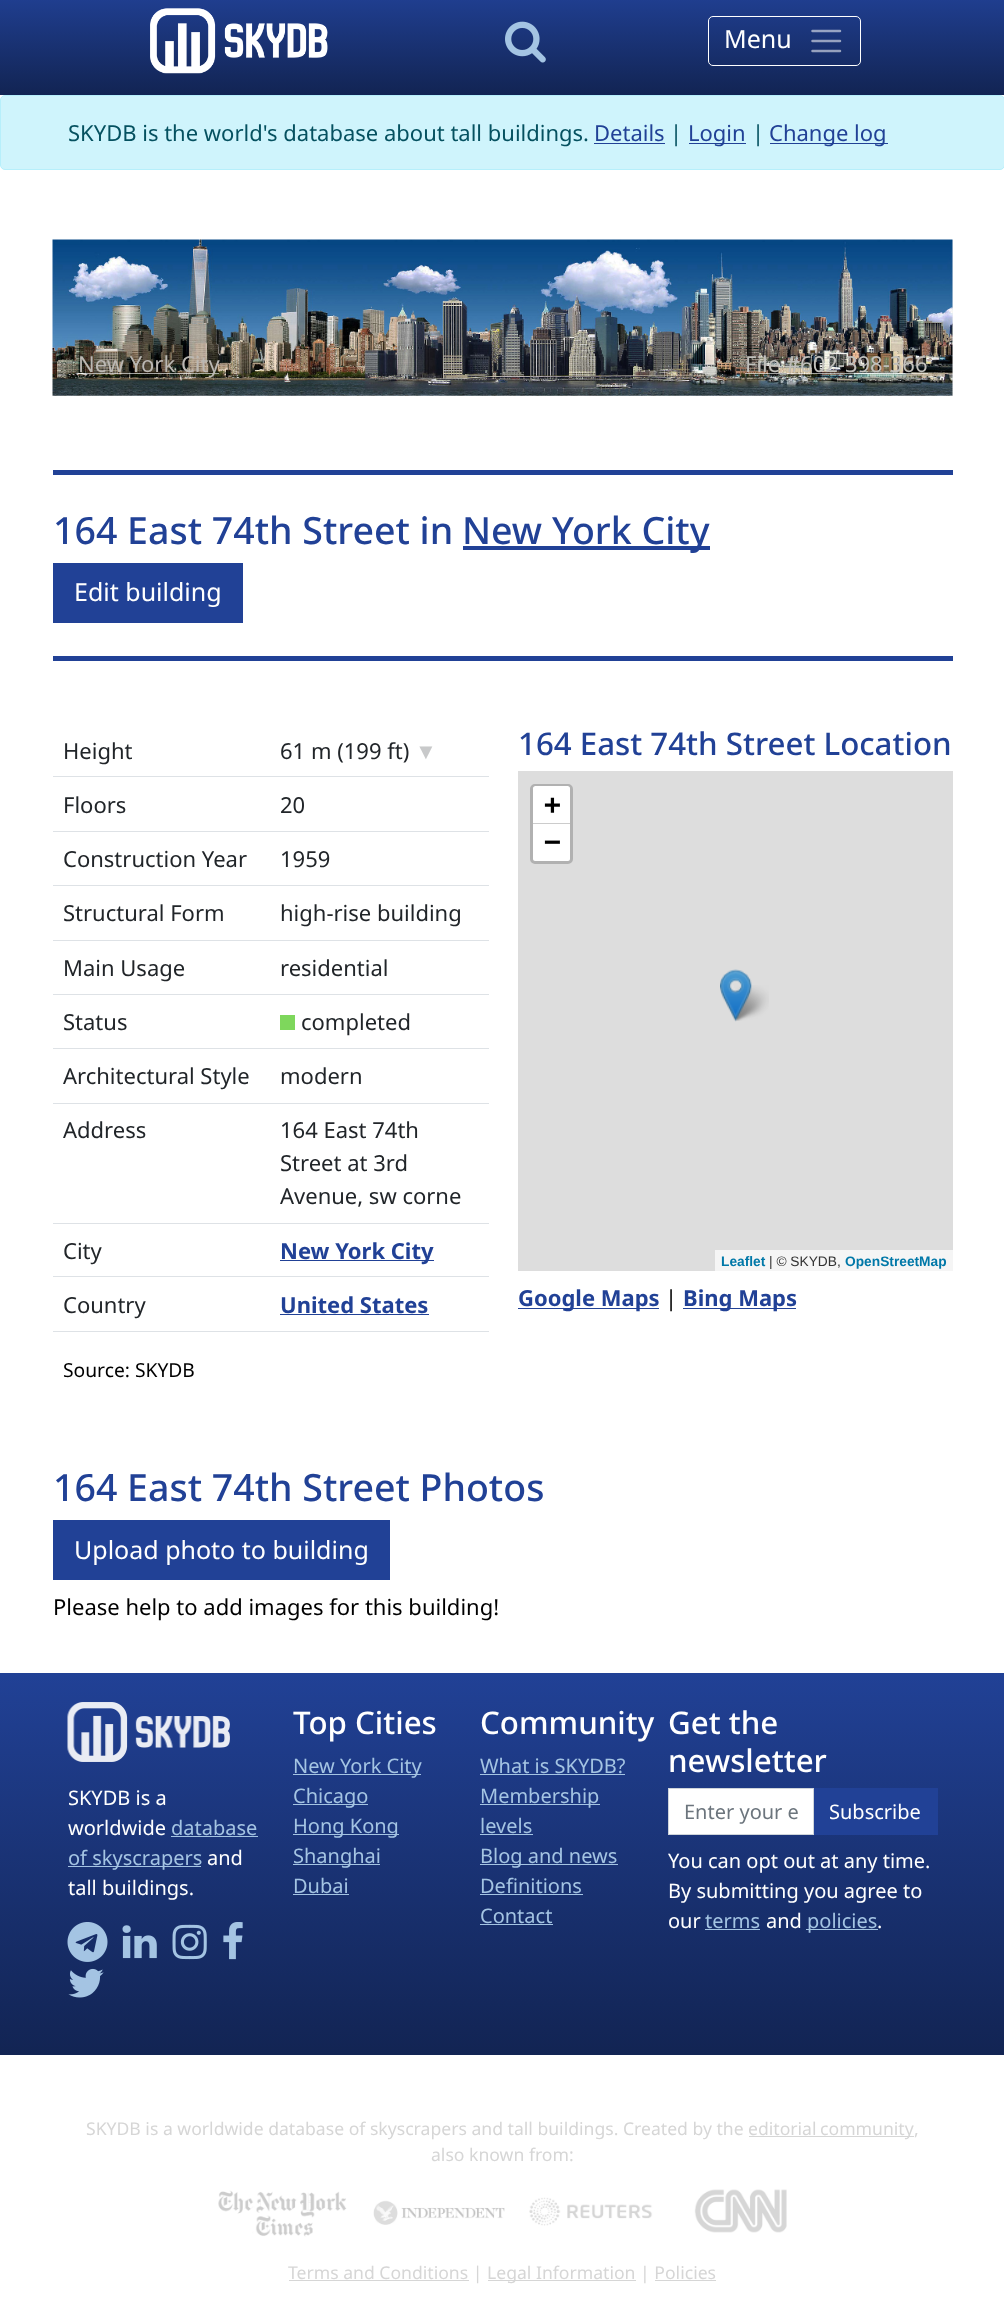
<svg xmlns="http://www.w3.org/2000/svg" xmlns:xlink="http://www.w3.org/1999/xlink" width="1004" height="2303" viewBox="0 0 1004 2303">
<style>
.cls-1{font:25px Noto Sans;fill:#ffffff}
.cls-2{font:22px Noto Sans;fill:#055160}
.cls-3{font:22px Noto Sans;fill:#214196}
.cls-4{font:22px Noto Sans;fill:#bbb8b3}
.cls-5{font:22px Noto Sans;fill:#c1c0bc}
.cls-6{font:500 37.5px Noto Sans;fill:#214196}
.cls-7{font:22px Noto Sans;fill:#212529}
.cls-8{font:22px Liberation Sans;fill:#c8c9ca}
.cls-9{font:bold 22px Noto Sans;fill:#214196}
.cls-10{font:19.25px Noto Sans;fill:#000000}
.cls-11{font:500 31.25px Noto Sans;fill:#214196}
.cls-12{font:bold 28px DejaVu Sans Mono;fill:#000000}
.cls-13{font:bold 13.75px Liberation Sans;fill:#0078a8}
.cls-14{font:13.75px Liberation Sans;fill:#333333}
.cls-15{font:22px Noto Sans;fill:#000000}
.cls-16{font:20px Noto Sans;fill:#ffffff}
.cls-17{font:20px Noto Sans;fill:#a4c4e3}
.cls-18{font:500 31.25px Noto Sans;fill:#ffffff}
.cls-19{font:20px Noto Sans;fill:#6c757d}
.cls-20{font:17.6px Noto Sans;fill:#d6d6d6}
</style>
<defs>
<linearGradient id="g1" gradientUnits="userSpaceOnUse" x1="503" y1="95" x2="503" y2="-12"><stop offset="0" stop-color="#122453"/><stop offset="1" stop-color="#214196"/></linearGradient>
<linearGradient id="g2" gradientUnits="userSpaceOnUse" x1="503" y1="2055" x2="503" y2="1673"><stop offset="0" stop-color="#122453"/><stop offset="1" stop-color="#214196"/></linearGradient>
</defs>
<rect width="100%" height="100%" fill="#ffffff"/>
<rect fill="url(#g1)" x="0" y="0" width="1004" height="95"/>
<image xlink:href="image0.png" x="150" y="8" width="178" height="66"/>
<image xlink:href="image1.png" x="505" y="21" width="41" height="42"/>
<rect fill="none" stroke="#ffffff" x="708.5" y="16.5" width="152" height="49" rx="4.5"/>
<path fill="none" stroke="#ffffff" stroke-opacity="0.55" stroke-width="2.5" stroke-linecap="round" d="M812.5 31H840M812.5 41H840M812.5 51H840"/>
<rect fill="#cff4fc" stroke="#b6effb" x="0.5" y="95.5" width="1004" height="74" rx="4.5"/>
<rect fill="#214196" x="594" y="143" width="71" height="1"/>
<rect fill="#214196" x="689" y="143" width="57" height="1"/>
<rect fill="#214196" x="770" y="143" width="118" height="1"/>
<rect fill="#eeeeee" x="53" y="240" width="900" height="156"/>
<image xlink:href="image2.png" x="52" y="239" width="901" height="157"/>
<rect fill="#ffffff" fill-opacity="0.6" x="78" y="373" width="141" height="1"/>
<rect fill="#ffffff" fill-opacity="0.6" x="745" y="373" width="183" height="1"/>
<rect fill="#214196" x="53" y="470" width="900" height="5"/>
<rect fill="#214196" x="463" y="546" width="247" height="4"/>
<rect fill="#214196" x="53" y="563" width="190" height="60"/>
<rect fill="#214196" x="53" y="656" width="900" height="5"/>
<rect fill="#dee2e6" x="53" y="1331" width="436" height="1"/>
<rect fill="#dee2e6" x="53" y="776" width="436" height="1"/>
<rect fill="#dee2e6" x="53" y="831" width="436" height="1"/>
<rect fill="#dee2e6" x="53" y="885" width="436" height="1"/>
<rect fill="#dee2e6" x="53" y="940" width="436" height="1"/>
<rect fill="#dee2e6" x="53" y="994" width="436" height="1"/>
<rect fill="#dee2e6" x="53" y="1048" width="436" height="1"/>
<rect fill="#7ed75c" x="280" y="1015" width="15" height="15"/>
<rect fill="#dee2e6" x="53" y="1103" width="436" height="1"/>
<rect fill="#dee2e6" x="53" y="1223" width="436" height="1"/>
<rect fill="#dee2e6" x="53" y="1276" width="436" height="1"/>
<rect fill="#214196" x="280" y="1260" width="154" height="1"/>
<rect fill="#214196" x="280" y="1314" width="149" height="1"/>
<rect fill="#dddddd" x="518" y="771" width="435" height="500"/>
<rect fill="none" stroke="#b1b1b1" stroke-width="3" x="531.5" y="785.5" width="40" height="77" rx="3.5"/>
<path fill="#ffffff" d="M535.5 786H567.5C569 786 570 787 570 788.5V824H533V788.5C533 787 534 786 535.5 786Z"/>
<rect fill="#cccccc" x="533" y="823" width="37" height="1"/>
<path fill="#ffffff" d="M533 824H570V858.5C570 860 569 861 567.5 861H535.5C534 861 533 860 533 858.5Z"/>
<rect fill="#f5f5f5" x="715" y="1250" width="238" height="21"/>
<image xlink:href="image4.png" x="731" y="985" width="38" height="36"/>
<image xlink:href="image3.png" x="720" y="969" width="32" height="53"/>
<rect fill="#214196" x="518" y="1308" width="141" height="1"/>
<rect fill="#214196" x="683" y="1308" width="113" height="1"/>
<rect fill="#214196" x="53" y="1520" width="337" height="60"/>
<rect fill="url(#g2)" x="0" y="1673" width="1004" height="382"/>
<image xlink:href="image5.png" x="67" y="1702" width="163" height="60"/>
<rect fill="#a4c4e3" x="171" y="1836" width="87" height="1"/>
<rect fill="#a4c4e3" x="68" y="1866" width="133" height="1"/>
<image xlink:href="image6.png" x="67" y="1922" width="41" height="40"/>
<image xlink:href="image7.png" x="122" y="1925" width="35" height="34"/>
<image xlink:href="image8.png" x="172" y="1924" width="35" height="36"/>
<image xlink:href="image9.png" x="223" y="1922" width="20" height="38"/>
<image xlink:href="image10.png" x="68" y="1968" width="36" height="30"/>
<rect fill="#a4c4e3" x="293" y="1774" width="128" height="1"/>
<rect fill="#a4c4e3" x="293" y="1804" width="75" height="1"/>
<rect fill="#a4c4e3" x="293" y="1834" width="106" height="1"/>
<rect fill="#a4c4e3" x="293" y="1864" width="87" height="1"/>
<rect fill="#a4c4e3" x="293" y="1894" width="56" height="1"/>
<rect fill="#a4c4e3" x="480" y="1774" width="145" height="1"/>
<rect fill="#a4c4e3" x="480" y="1804" width="120" height="1"/>
<rect fill="#a4c4e3" x="480" y="1834" width="53" height="1"/>
<rect fill="#a4c4e3" x="480" y="1864" width="138" height="1"/>
<rect fill="#a4c4e3" x="480" y="1894" width="103" height="1"/>
<rect fill="#a4c4e3" x="480" y="1924" width="73" height="1"/>
<rect fill="#ffffff" stroke="#ced4da" x="668.5" y="1788.5" width="145" height="46"/>
<rect fill="#214196" x="814" y="1788" width="124" height="47"/>
<rect fill="#a4c4e3" x="705" y="1929" width="55" height="1"/>
<rect fill="#a4c4e3" x="806" y="1929" width="72" height="1"/>
<rect fill="#d6d6d6" x="749" y="2136" width="165" height="1"/>
<image xlink:href="image11.png" x="218" y="2189" width="569" height="48"/>
<rect fill="#d6d6d6" x="289" y="2280" width="180" height="1"/>
<rect fill="#d6d6d6" x="488" y="2280" width="148" height="1"/>
<rect fill="#d6d6d6" x="655" y="2280" width="61" height="1"/>
<text class="cls-1" x="724" y="48">Menu</text>
<text class="cls-2" x="68" y="141">SKYDB is the world's database about tall buildings.</text>
<text class="cls-3" x="594" y="141">Details</text>
<text class="cls-2" x="670" y="141">|</text>
<text class="cls-3" x="688" y="141">Login</text>
<text class="cls-2" x="752" y="141">|</text>
<text class="cls-3" x="769" y="141">Change log</text>
<text class="cls-4" x="78" y="372">New York City</text>
<text class="cls-5" x="745" y="372">File #602-398-366</text>
<text class="cls-6" x="53" y="544">164 East 74th Street in</text>
<text class="cls-6" x="462" y="544">New York City</text>
<text class="cls-1" x="74" y="601">Edit building</text>
<text class="cls-7" x="63" y="759">Height</text>
<text class="cls-7" x="280" y="759">61 m (199 ft)</text>
<text class="cls-8" x="415" y="759">▼</text>
<text class="cls-7" x="63" y="813">Floors</text>
<text class="cls-7" x="280" y="813">20</text>
<text class="cls-7" x="63" y="867">Construction Year</text>
<text class="cls-7" x="280" y="867">1959</text>
<text class="cls-7" x="63" y="921">Structural Form</text>
<text class="cls-7" x="280" y="921">high-rise building</text>
<text class="cls-7" x="63" y="976">Main Usage</text>
<text class="cls-7" x="280" y="976">residential</text>
<text class="cls-7" x="63" y="1030">Status</text>
<text class="cls-7" x="301" y="1030">completed</text>
<text class="cls-7" x="63" y="1084">Architectural Style</text>
<text class="cls-7" x="280" y="1084">modern</text>
<text class="cls-7" x="63" y="1138">Address</text>
<text class="cls-7"><tspan x="280" y="1138">164 East 74th</tspan><tspan x="280" y="1171">Street at 3rd</tspan><tspan x="280" y="1204">Avenue, sw corne</tspan></text>
<text class="cls-7" x="63" y="1259">City</text>
<text class="cls-9" x="280" y="1259">New York City</text>
<text class="cls-7" x="63" y="1313">Country</text>
<text class="cls-9" x="280" y="1313">United States</text>
<text class="cls-10" x="63" y="1377">Source: SKYDB</text>
<text class="cls-11" x="518" y="755">164 East 74th Street Location</text>
<text class="cls-12"><tspan x="544" y="814">+</tspan><tspan x="544" y="851">−</tspan></text>
<text class="cls-13" x="721" y="1266">Leaflet</text>
<text class="cls-14" x="769" y="1266">| © SKYDB,</text>
<text class="cls-13" x="845" y="1266">OpenStreetMap</text>
<text class="cls-9" x="518" y="1306">Google Maps</text>
<text class="cls-15" x="665" y="1306">|</text>
<text class="cls-9" x="683" y="1306">Bing Maps</text>
<text class="cls-6" x="53" y="1501">164 East 74th Street Photos</text>
<text class="cls-1" x="74" y="1559">Upload photo to building</text>
<text class="cls-15" x="53" y="1615">Please help to add images for this building!</text>
<text class="cls-16"><tspan x="68" y="1805">SKYDB is a</tspan><tspan x="68" y="1835">worldwide</tspan></text>
<text class="cls-17" x="171" y="1835">database</text>
<text class="cls-17" x="68" y="1865">of skyscrapers</text>
<text class="cls-16" x="207" y="1865">and</text>
<text class="cls-16" x="68" y="1895">tall buildings.</text>
<text class="cls-18" x="293" y="1734">Top Cities</text>
<text class="cls-17"><tspan x="293" y="1773">New York City</tspan><tspan x="293" y="1803">Chicago</tspan><tspan x="293" y="1833">Hong Kong</tspan><tspan x="293" y="1863">Shanghai</tspan><tspan x="293" y="1893">Dubai</tspan></text>
<text class="cls-18" x="480" y="1734">Community</text>
<text class="cls-17"><tspan x="480" y="1773">What is SKYDB?</tspan><tspan x="480" y="1803">Membership</tspan><tspan x="480" y="1833">levels</tspan><tspan x="480" y="1863">Blog and news</tspan><tspan x="480" y="1893">Definitions</tspan><tspan x="480" y="1923">Contact</tspan></text>
<text class="cls-18"><tspan x="668" y="1734">Get the</tspan><tspan x="668" y="1772">newsletter</tspan></text>
<text class="cls-19" x="684" y="1819">Enter your e</text>
<text class="cls-16" x="829" y="1819">Subscribe</text>
<text class="cls-16"><tspan x="668" y="1868">You can opt out at any time.</tspan><tspan x="668" y="1898">By submitting you agree to</tspan><tspan x="668" y="1928">our</tspan></text>
<text class="cls-17" x="705" y="1928">terms</text>
<text class="cls-16" x="766" y="1928">and</text>
<text class="cls-17" x="807" y="1928">policies</text>
<text class="cls-16" x="877" y="1928">.</text>
<text class="cls-20" x="86" y="2135">SKYDB is a worldwide database of skyscrapers and tall buildings. Created by the</text>
<text class="cls-20" x="748" y="2135" word-spacing="-1">editorial community</text>
<text class="cls-20" x="914" y="2135">,</text>
<text class="cls-20" x="431" y="2161">also known from:</text>
<text class="cls-20" x="288" y="2279">Terms and Conditions |</text>
<text class="cls-20" x="487" y="2279">Legal Information | Policies</text>
</svg>
